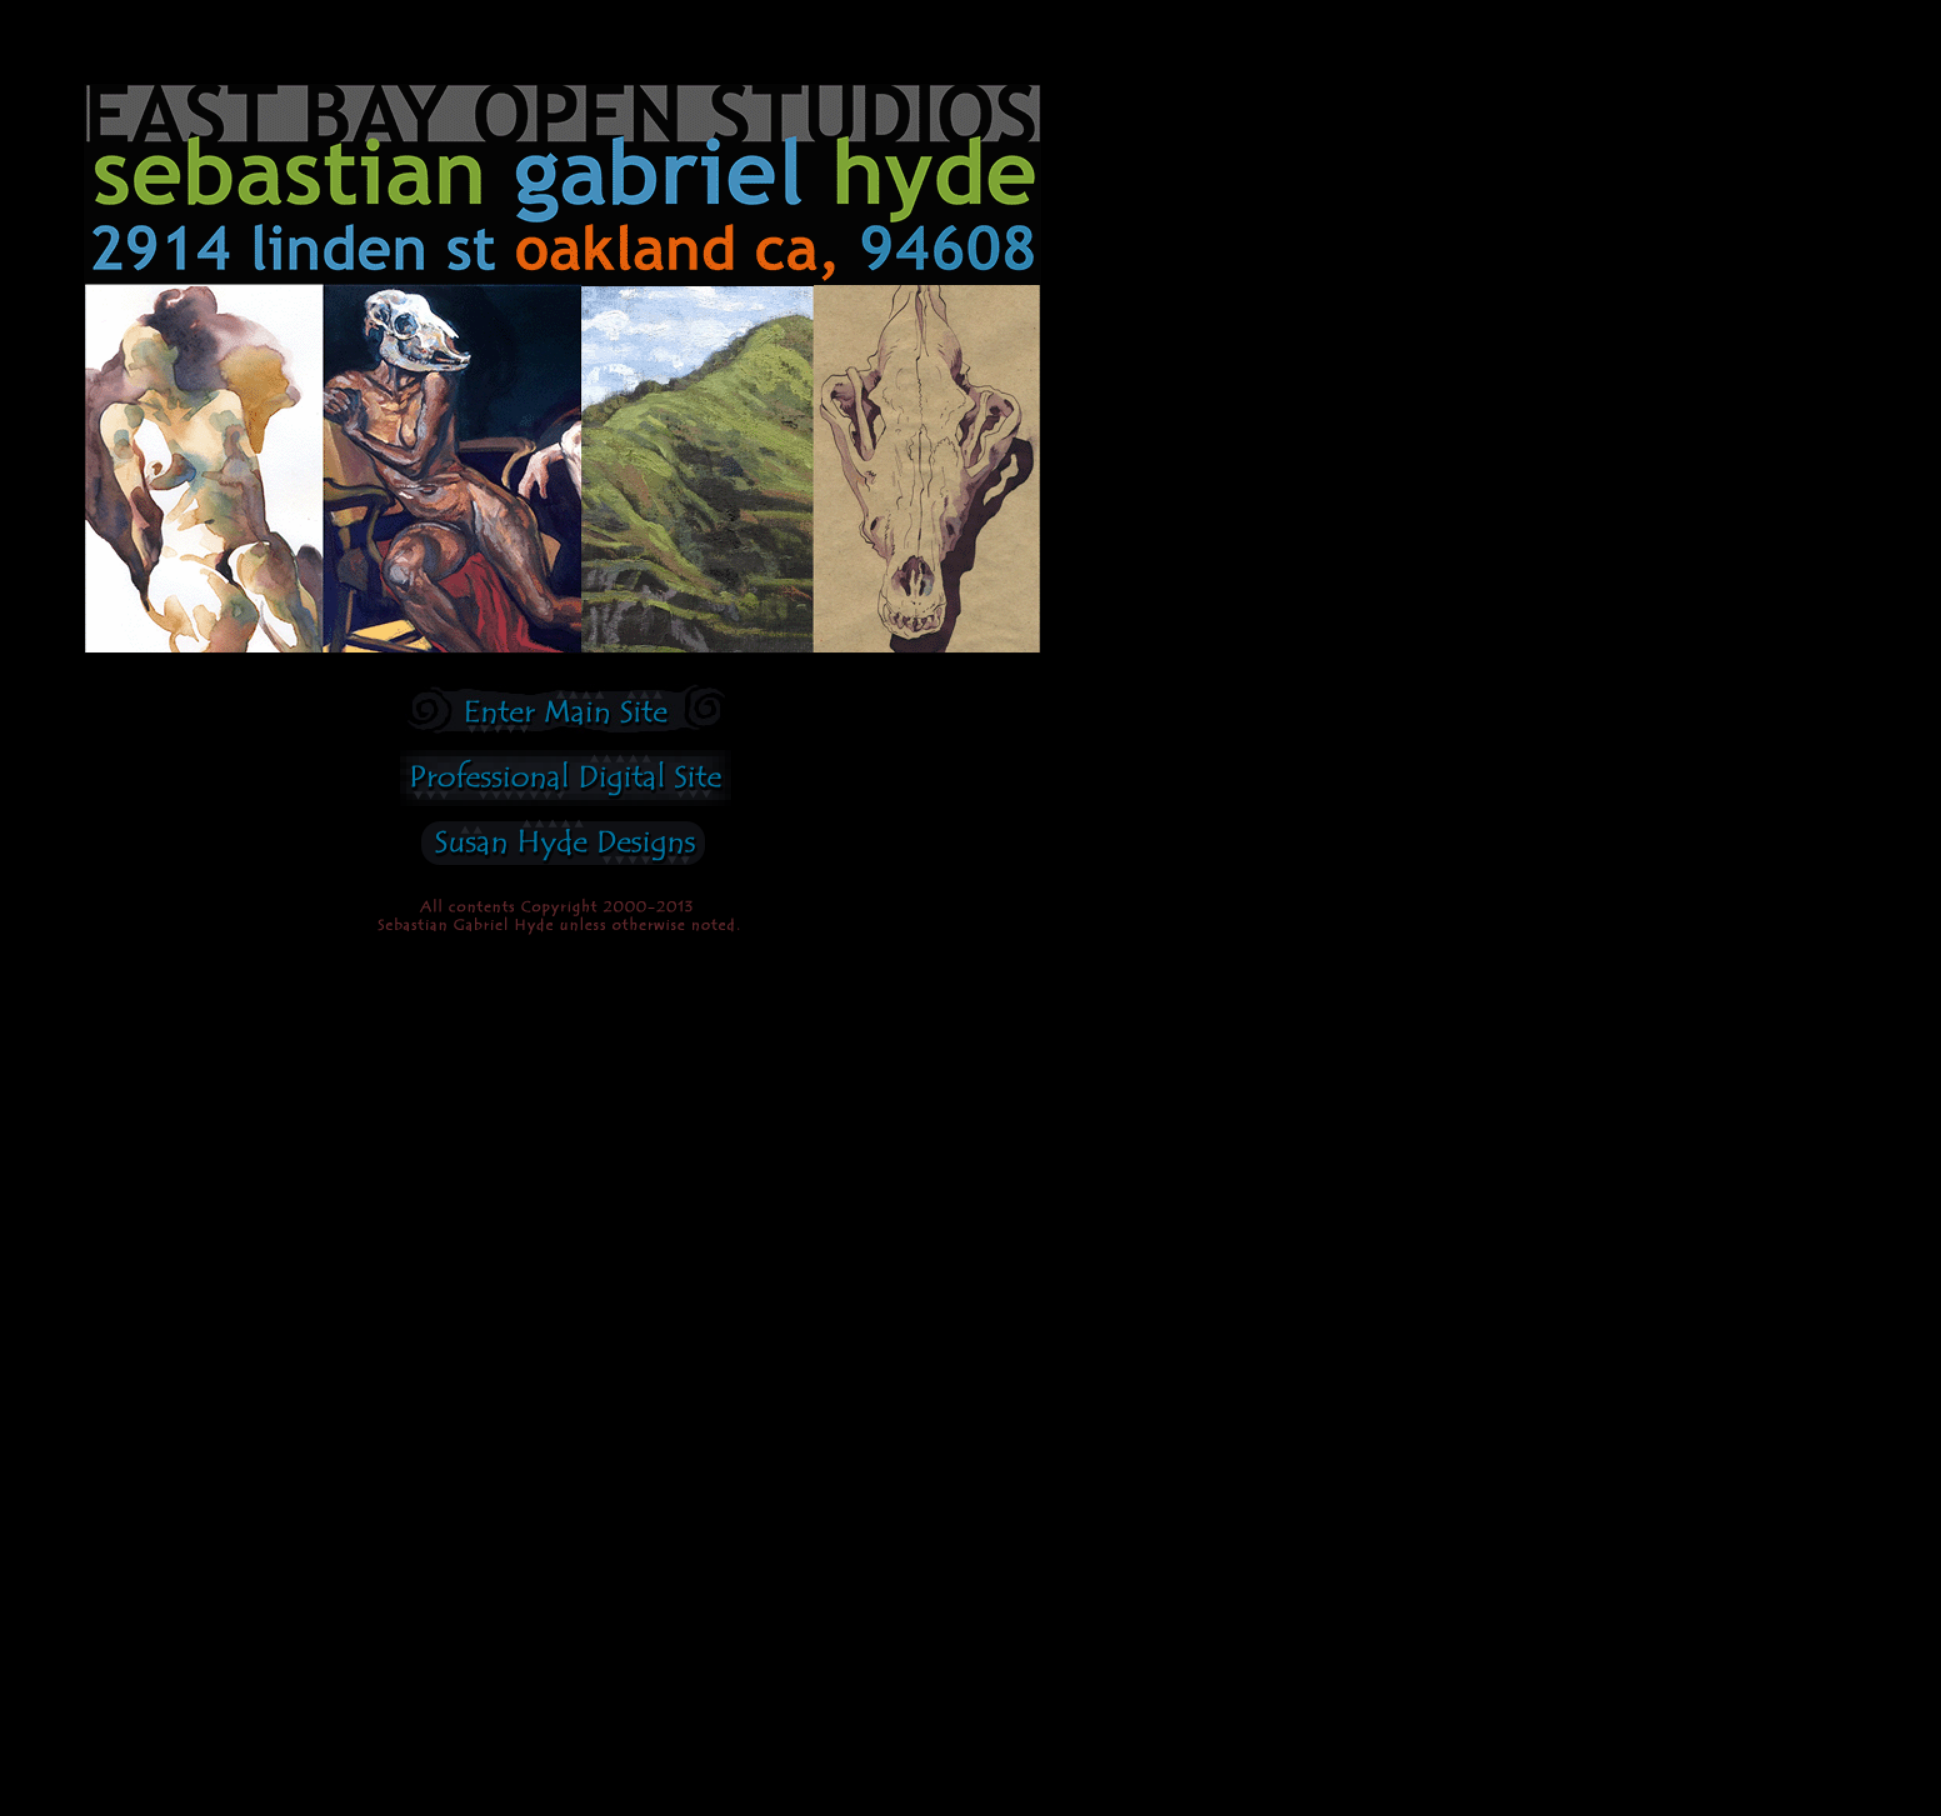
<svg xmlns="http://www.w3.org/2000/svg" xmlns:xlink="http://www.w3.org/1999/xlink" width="1941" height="1816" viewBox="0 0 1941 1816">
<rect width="100%" height="100%" fill="#000000"/>
<image xlink:href="image0.png" x="84" y="84" width="957" height="570"/>
<image xlink:href="image1.png" x="405" y="684" width="320" height="50"/>
<image xlink:href="image2.png" x="400" y="750" width="331" height="56"/>
<image xlink:href="image3.png" x="421" y="819" width="284" height="46"/>
<image xlink:href="image4.png" x="377" y="897" width="363" height="39"/>
</svg>
